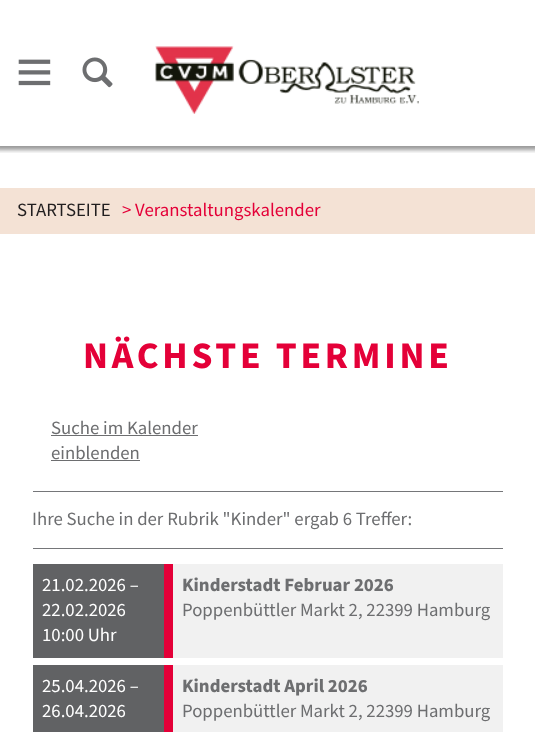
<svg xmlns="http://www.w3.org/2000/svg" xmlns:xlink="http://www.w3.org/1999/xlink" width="535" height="732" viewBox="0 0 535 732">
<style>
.cls-1{font:18.75px Source Sans Pro;fill:#211e1f}
.cls-2{font:18.75px Source Sans Pro;fill:#e40038}
.cls-3{font:bold 37.5px Source Sans Pro;letter-spacing:3.75px;fill:#e40038}
.cls-4{font:18.75px Source Sans Pro;fill:#6d6e70}
.cls-5{font:18.75px Source Sans Pro;fill:#ffffff}
.cls-6{font:bold 18.75px Source Sans Pro;fill:#6d6e70}
</style>
<defs>
<clipPath id="clip1"><rect x="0" y="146" width="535" height="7"/></clipPath>
</defs>
<rect width="100%" height="100%" fill="#f4e2d5"/>
<rect fill="#ffffff" x="0" y="0" width="535" height="188"/>
<g clip-path="url(#clip1)">
<rect fill="#000000" fill-opacity="0.4" filter="blur(2px)" x="-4" y="-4" width="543" height="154"/>
</g>
<image xlink:href="image0.png" x="18" y="59" width="33" height="27"/>
<image xlink:href="image1.png" x="82" y="57" width="31" height="31"/>
<image xlink:href="image2.png" x="155" y="46" width="264" height="68"/>
<rect fill="#ffffff" x="0" y="234" width="535" height="498"/>
<rect fill="#6d6e70" x="51" y="435" width="147" height="1"/>
<rect fill="#6d6e70" x="51" y="460" width="89" height="1"/>
<rect fill="#757679" x="33" y="491" width="470" height="1"/>
<rect fill="#757679" x="33" y="548" width="470" height="1"/>
<rect fill="#616264" x="33" y="564" width="131" height="94"/>
<rect fill="#f1f1f1" x="173" y="564" width="330" height="94"/>
<rect fill="#e40038" x="164" y="564" width="9" height="94"/>
<rect fill="#616264" x="33" y="665" width="131" height="67"/>
<rect fill="#f1f1f1" x="173" y="665" width="330" height="67"/>
<rect fill="#e40038" x="164" y="665" width="9" height="67"/>
<text class="cls-1" x="17" y="216">STARTSEITE</text>
<text class="cls-2" x="122" y="216">&gt; Veranstaltungskalender</text>
<text class="cls-3" x="83" y="368">NÄCHSTE TERMINE</text>
<text class="cls-4"><tspan x="51" y="434">Suche im Kalender</tspan><tspan x="51" y="459">einblenden</tspan></text>
<text class="cls-4" x="32" y="525">Ihre Suche in der Rubrik "Kinder" ergab 6 Treffer:</text>
<text class="cls-5"><tspan x="42" y="591">21.02.2026 –</tspan><tspan x="42" y="616">22.02.2026</tspan><tspan x="42" y="641">10:00 Uhr</tspan></text>
<text class="cls-6" x="182" y="591">Kinderstadt Februar 2026</text>
<text class="cls-4" x="182" y="616">Poppenbüttler Markt 2, 22399 Hamburg</text>
<text class="cls-5"><tspan x="42" y="692">25.04.2026 –</tspan><tspan x="42" y="717">26.04.2026</tspan></text>
<text class="cls-6" x="182" y="692">Kinderstadt April 2026</text>
<text class="cls-4" x="182" y="717">Poppenbüttler Markt 2, 22399 Hamburg</text>
</svg>
